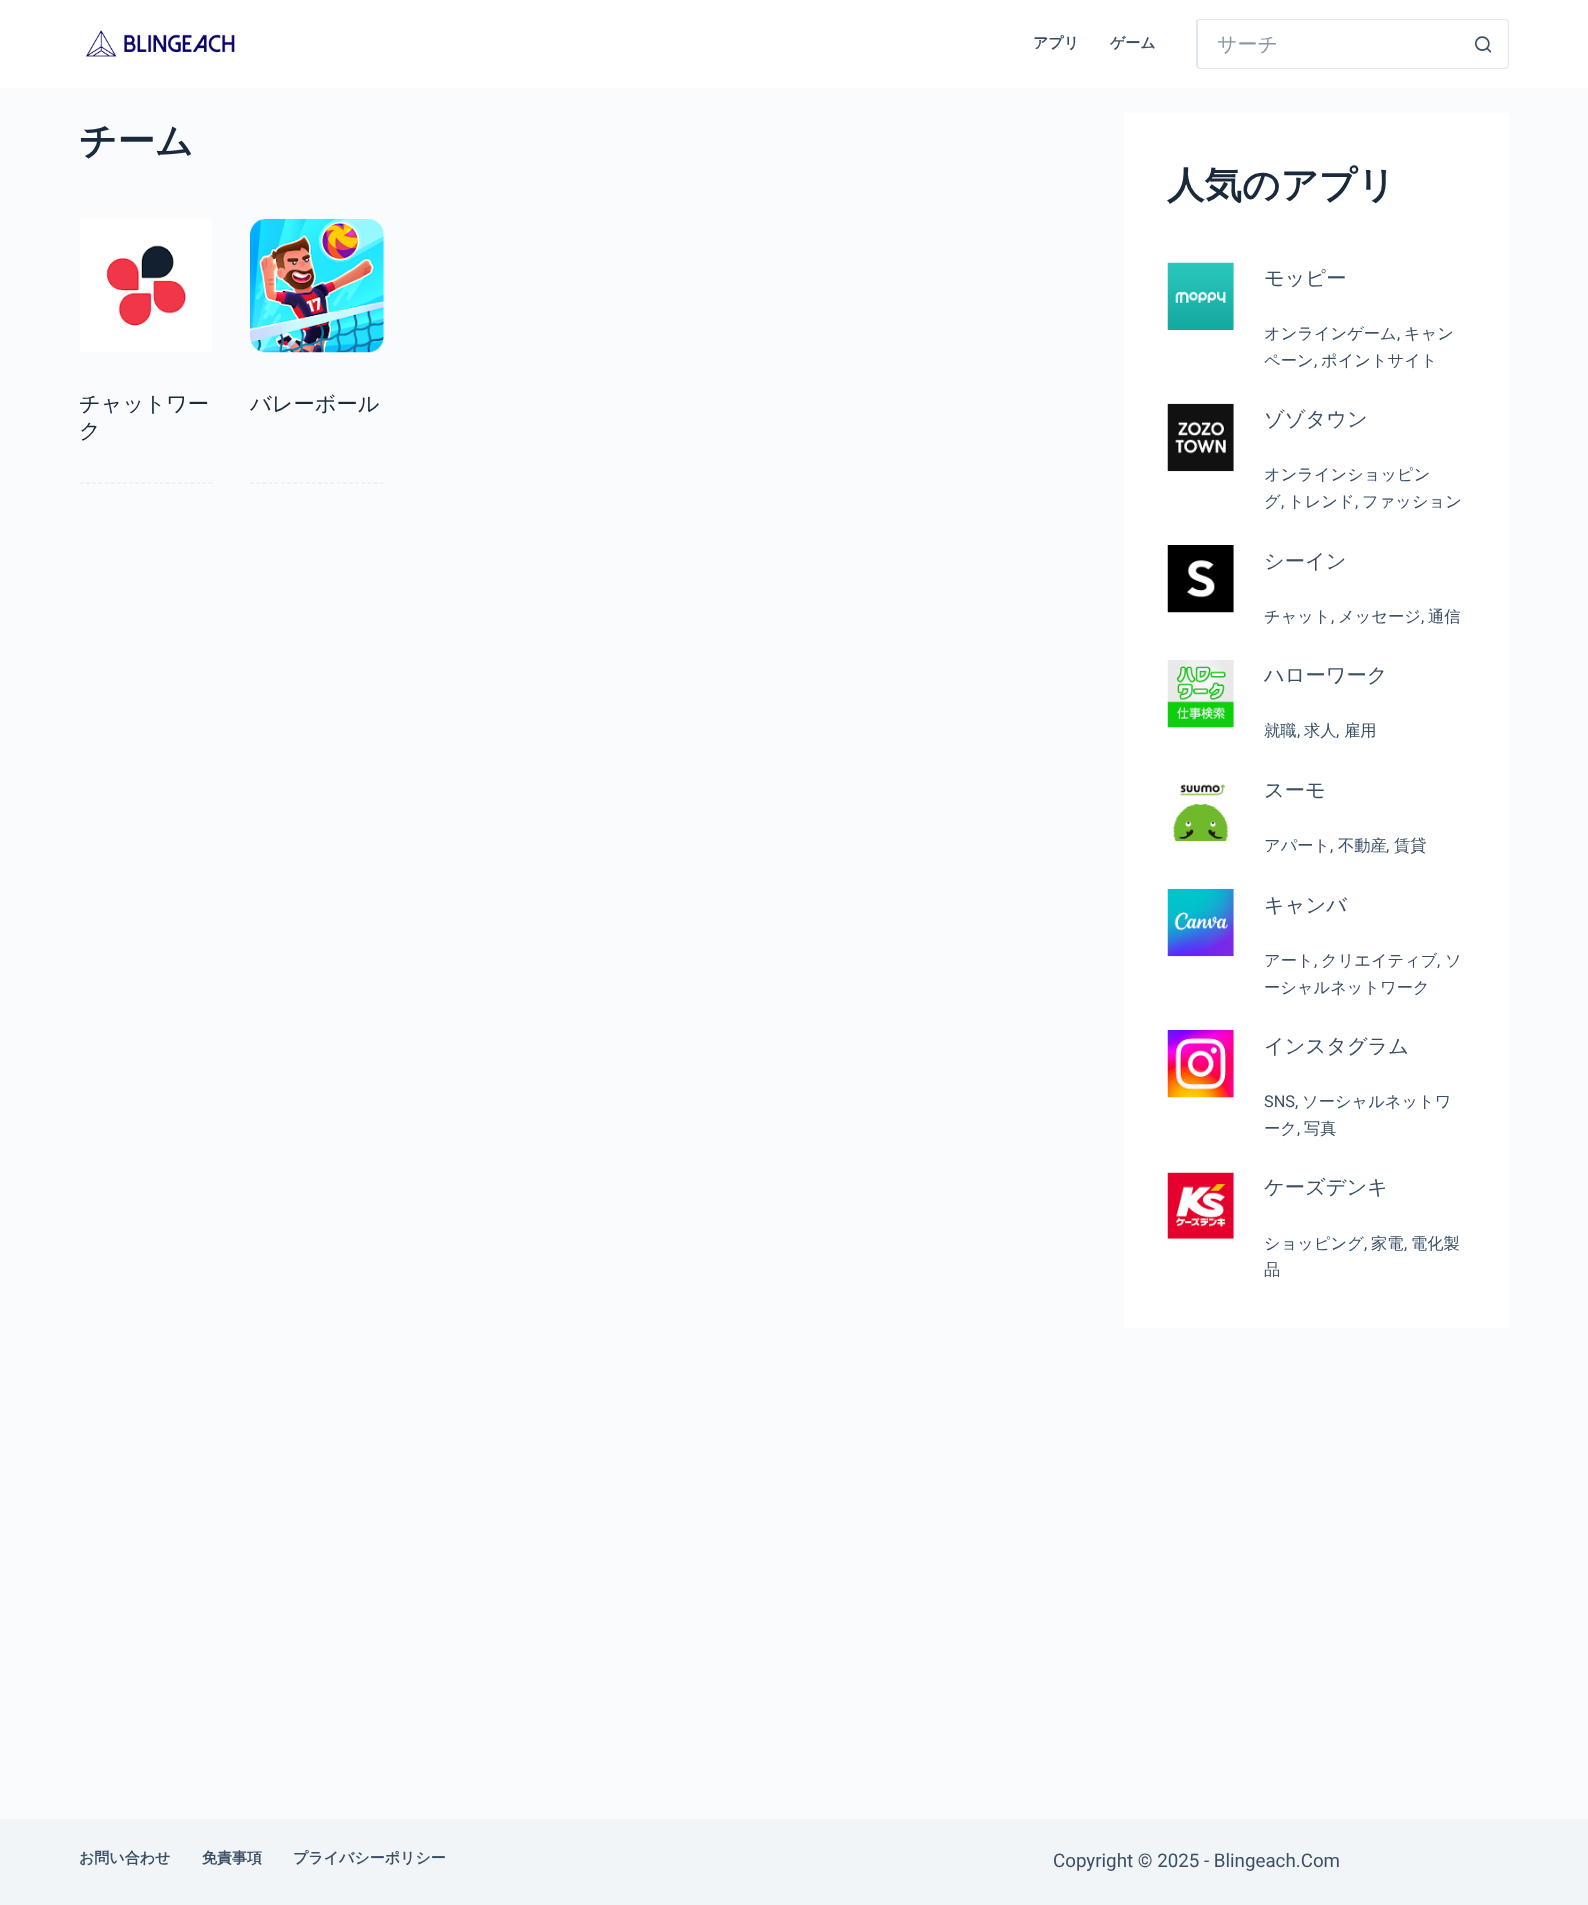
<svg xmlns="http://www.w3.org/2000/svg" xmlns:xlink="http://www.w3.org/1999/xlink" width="1588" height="1905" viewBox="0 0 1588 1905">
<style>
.cls-1{font:bold 15px WenQuanYi Zen Hei;fill:#3a4f66}
.cls-2{font:500 20px WenQuanYi Zen Hei;fill:#8995a3}
.cls-3{font:bold 37.5px WenQuanYi Zen Hei;fill:#192a3d}
.cls-4{font:500 21.25px WenQuanYi Zen Hei;fill:#192a3d}
.cls-5{font:500 20.25px WenQuanYi Zen Hei;fill:#3a4f66}
.cls-6{font:500 16.25px WenQuanYi Zen Hei;fill:#3a4f66}
.cls-7{font:16.25px Roboto;fill:#3a4f66}
.cls-8{font:18.75px Roboto;fill:#3a4f66}
</style>
<rect width="100%" height="100%" fill="#fafbfc"/>
<rect fill="#ffffff" x="0" y="0" width="1588" height="88"/>
<image xlink:href="image0.png" x="85" y="30" width="150" height="27"/>
<path fill="#e1e8ed" fill-rule="evenodd" d="M1200 19H1459V69H1200C1198 69 1196 67 1196 65V22C1196 20 1198 19 1200 19ZM1200 20H1459V68H1200C1199 68 1198 66 1198 65V22C1198 21 1199 20 1200 20Z"/>
<path fill="#e1e8ed" fill-rule="evenodd" d="M1459 19H1505C1507 19 1509 20 1509 22V65C1509 67 1507 69 1505 69H1459ZM1459 20H1505C1506 20 1508 21 1508 22V65C1508 66 1506 68 1505 68H1459Z"/>
<image xlink:href="image1.png" x="1475" y="36" width="16" height="17"/>
<path fill="none" stroke="#e5e9ee" stroke-width="1.2" stroke-dasharray="3.75 2.38" d="M80 483H212.5"/>
<image xlink:href="image2.png" x="80" y="219" width="132" height="133"/>
<path fill="none" stroke="#e5e9ee" stroke-width="1.2" stroke-dasharray="3.75 2.44" d="M250 483H384"/>
<image xlink:href="image3.png" x="250" y="218" width="134" height="135"/>
<rect fill="#ffffff" x="1124" y="113" width="385" height="1215"/>
<image xlink:href="image4.png" x="1167" y="262" width="67" height="68"/>
<image xlink:href="image5.png" x="1167" y="403" width="67" height="69"/>
<image xlink:href="image6.png" x="1167" y="545" width="67" height="68"/>
<image xlink:href="image7.png" x="1167" y="660" width="67" height="68"/>
<image xlink:href="image8.png" x="1172" y="784" width="57" height="58"/>
<image xlink:href="image9.png" x="1167" y="888" width="67" height="69"/>
<image xlink:href="image10.png" x="1167" y="1030" width="67" height="68"/>
<image xlink:href="image11.png" x="1167" y="1172" width="67" height="67"/>
<rect fill="#f2f5f7" x="0" y="1819" width="1588" height="86"/>
<text class="cls-1" x="1033" y="48">アプリ</text>
<text class="cls-1" x="1110" y="48">ゲーム</text>
<text class="cls-2" x="1217" y="51">サーチ</text>
<text class="cls-3" x="79" y="154">チーム</text>
<text class="cls-4"><tspan x="79" y="411">チャットワー</tspan><tspan x="79" y="438">ク</tspan></text>
<text class="cls-4" x="250" y="411">バレーボール</text>
<text class="cls-3" x="1167" y="198">人気のアプリ</text>
<text class="cls-5" x="1264" y="285">モッピー</text>
<text class="cls-6" x="1264" y="339">オンラインゲーム</text>
<text class="cls-7" x="1397" y="339">,</text>
<text class="cls-6" x="1404" y="339">キャン</text>
<text class="cls-6" x="1264" y="366">ペーン</text>
<text class="cls-7" x="1314" y="366">,</text>
<text class="cls-6" x="1321" y="366">ポイントサイト</text>
<text class="cls-5" x="1264" y="426">ゾゾタウン</text>
<text class="cls-6"><tspan x="1264" y="480">オンラインショッピン</tspan><tspan x="1264" y="507">グ</tspan></text>
<text class="cls-7" x="1281" y="507">,</text>
<text class="cls-6" x="1288" y="507">トレンド</text>
<text class="cls-7" x="1355" y="507">,</text>
<text class="cls-6" x="1362" y="507">ファッション</text>
<text class="cls-5" x="1264" y="568">シーイン</text>
<text class="cls-6" x="1264" y="622">チャット</text>
<text class="cls-7" x="1331" y="622">,</text>
<text class="cls-6" x="1338" y="622">メッセージ</text>
<text class="cls-7" x="1421" y="622">,</text>
<text class="cls-6" x="1428" y="622">通信</text>
<text class="cls-5" x="1264" y="682">ハローワーク</text>
<text class="cls-6" x="1264" y="736">就職</text>
<text class="cls-7" x="1297" y="736">,</text>
<text class="cls-6" x="1304" y="736">求人</text>
<text class="cls-7" x="1336" y="736">,</text>
<text class="cls-6" x="1344" y="736">雇用</text>
<text class="cls-5" x="1264" y="797">スーモ</text>
<text class="cls-6" x="1264" y="851">アパート</text>
<text class="cls-7" x="1330" y="851">,</text>
<text class="cls-6" x="1338" y="851">不動産</text>
<text class="cls-7" x="1386" y="851">,</text>
<text class="cls-6" x="1394" y="851">賃貸</text>
<text class="cls-5" x="1264" y="912">キャンバ</text>
<text class="cls-6" x="1264" y="966">アート</text>
<text class="cls-7" x="1314" y="966">,</text>
<text class="cls-6" x="1321" y="966">クリエイティブ</text>
<text class="cls-7" x="1437" y="966">,</text>
<text class="cls-6" x="1445" y="966">ソ</text>
<text class="cls-6" x="1264" y="993">ーシャルネットワーク</text>
<text class="cls-5" x="1264" y="1053">インスタグラム</text>
<text class="cls-7" x="1264" y="1107">SNS,</text>
<text class="cls-6" x="1302" y="1107">ソーシャルネットワ</text>
<text class="cls-6" x="1264" y="1134">ーク</text>
<text class="cls-7" x="1297" y="1134">,</text>
<text class="cls-6" x="1304" y="1134">写真</text>
<text class="cls-5" x="1264" y="1194">ケーズデンキ</text>
<text class="cls-6" x="1264" y="1249">ショッピング</text>
<text class="cls-7" x="1364" y="1249">,</text>
<text class="cls-6" x="1371" y="1249">家電</text>
<text class="cls-7" x="1404" y="1249">,</text>
<text class="cls-6" x="1411" y="1249">電化製</text>
<text class="cls-6" x="1264" y="1275">品</text>
<text class="cls-1" x="79" y="1863">お問い合わせ</text>
<text class="cls-1" x="202" y="1863">免責事項</text>
<text class="cls-1" x="293" y="1863">プライバシーポリシー</text>
<text class="cls-8" x="1053" y="1867">Copyright © 2025 - Blingeach.Com</text>
</svg>
